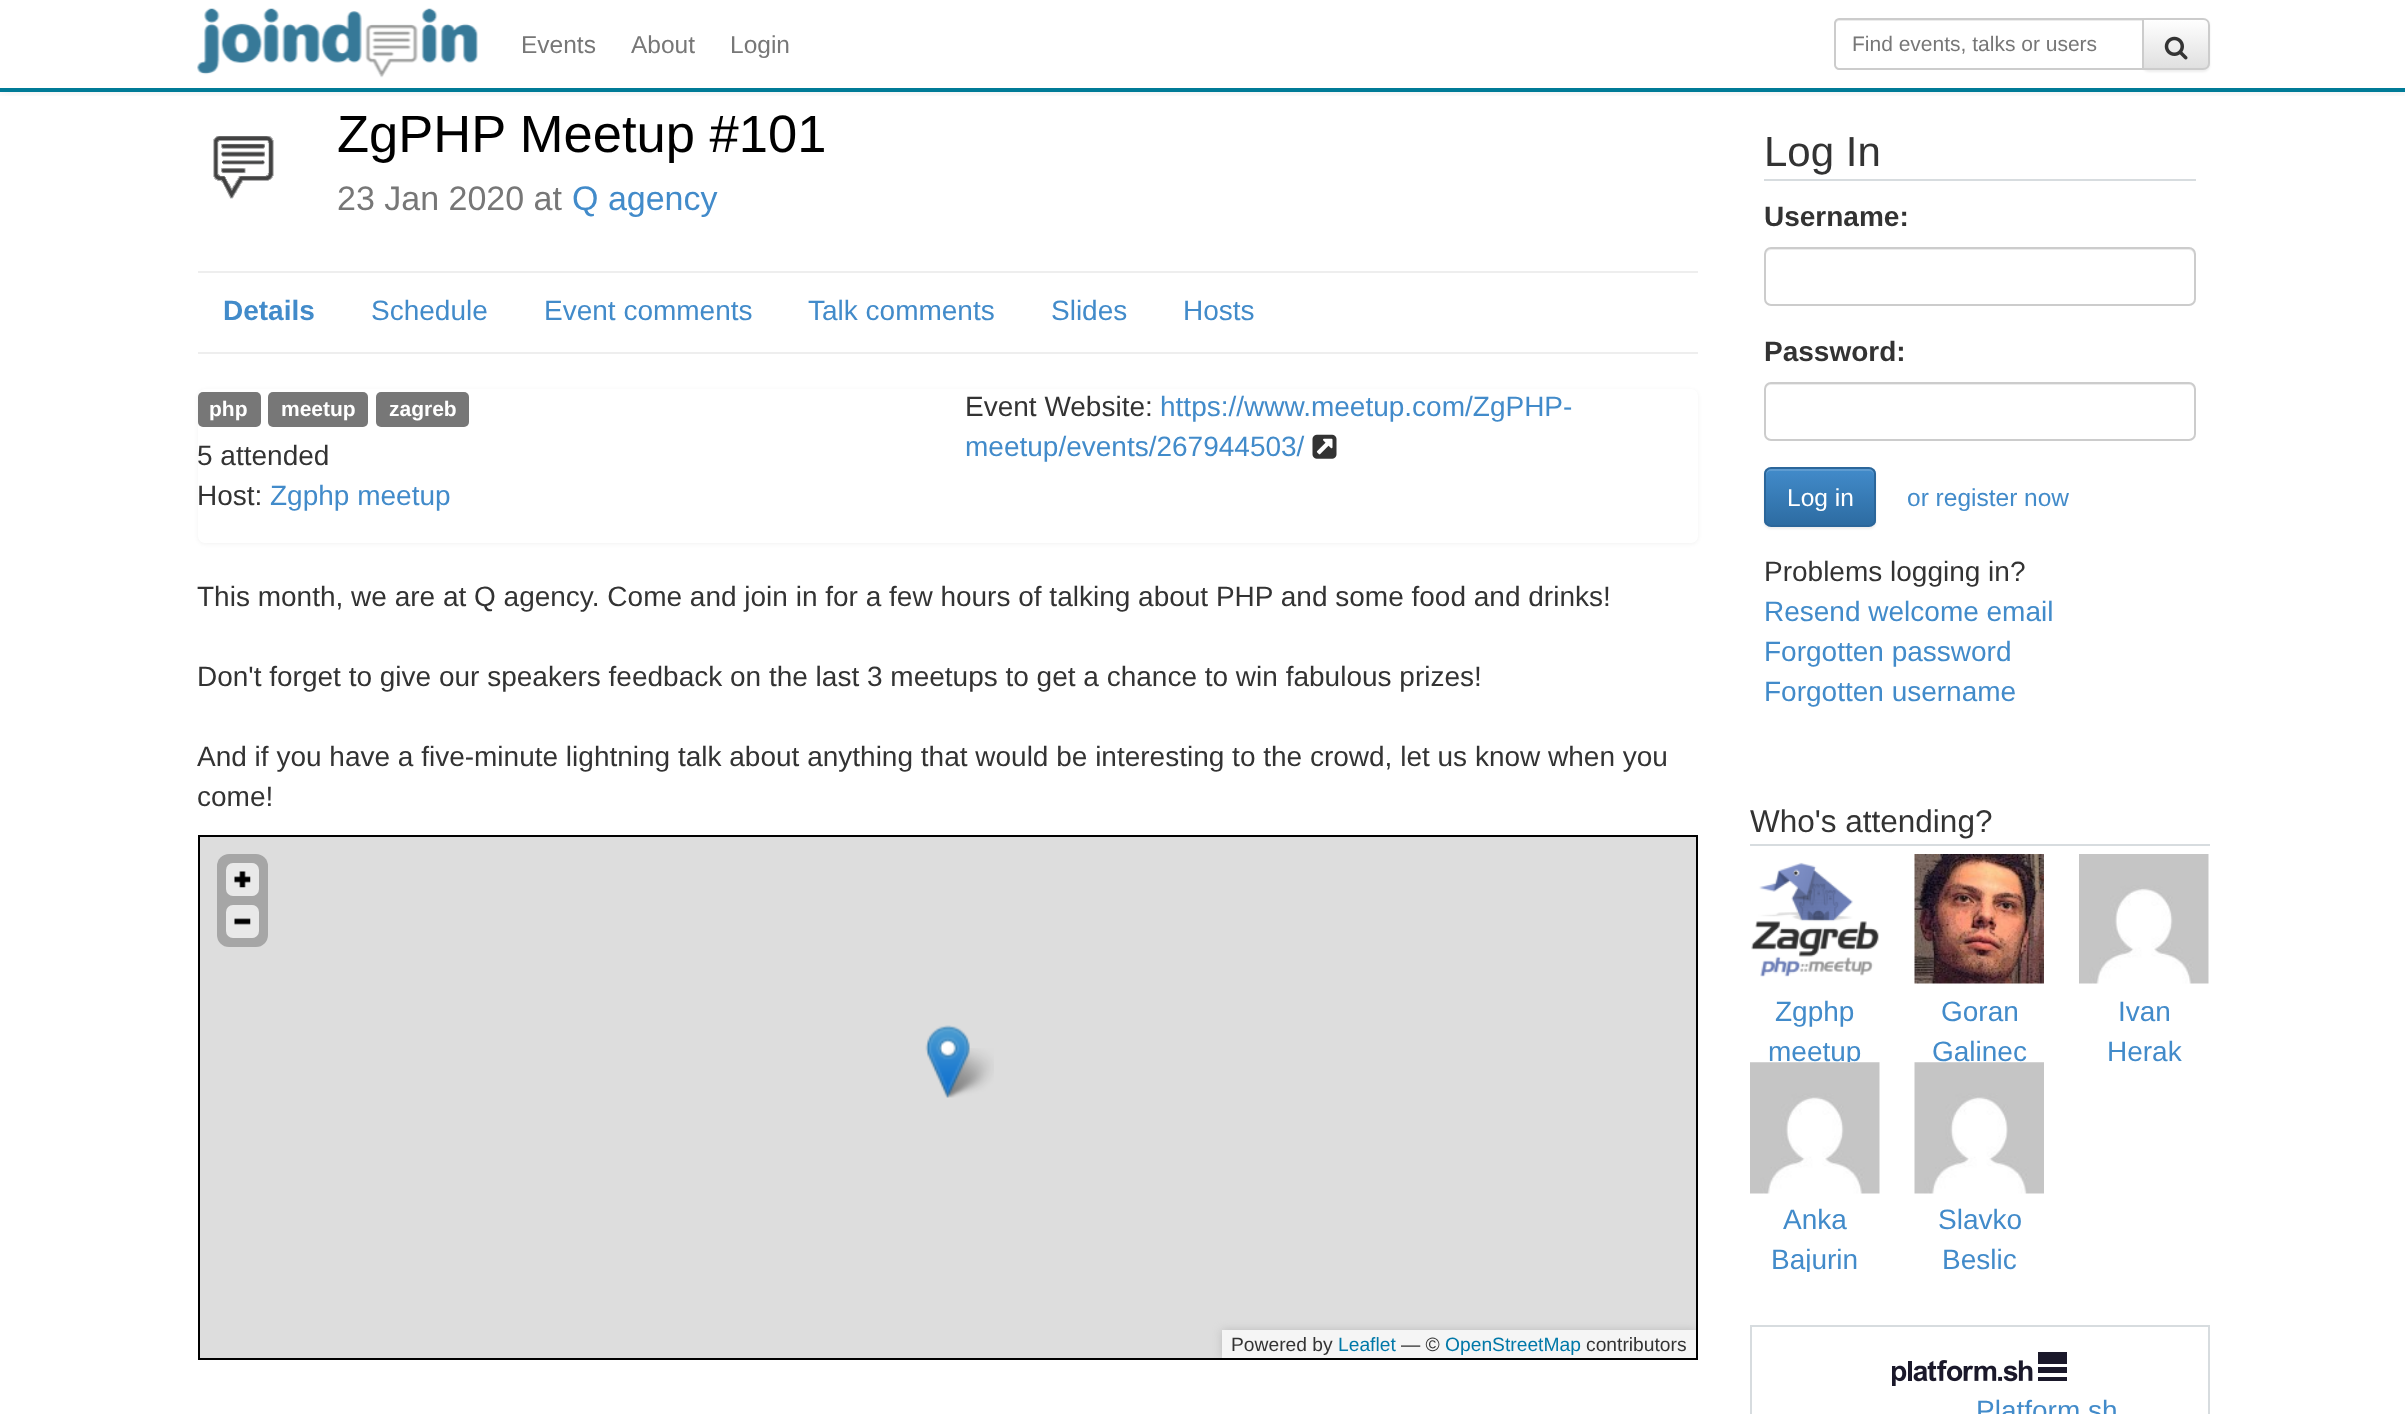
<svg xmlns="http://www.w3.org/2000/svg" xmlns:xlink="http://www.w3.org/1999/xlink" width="2405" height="1414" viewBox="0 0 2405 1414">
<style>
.cls-1{font:24.5px Liberation Sans;fill:#777777}
.cls-2{font:21px Liberation Sans;fill:#777777}
.cls-3{font:52.5px Liberation Sans;fill:#000000}
.cls-4{font:34px Liberation Sans;fill:#777777}
.cls-5{font:34px Liberation Sans;fill:#428bca}
.cls-6{font:bold 28px Liberation Sans;fill:#428bca}
.cls-7{font:28px Liberation Sans;fill:#428bca}
.cls-8{font:bold 21px Liberation Sans;fill:#ffffff}
.cls-9{font:28px Liberation Sans;fill:#333333}
.cls-10{font:19.25px Liberation Sans;fill:#333333}
.cls-11{font:19.25px Liberation Sans;fill:#0078a8}
.cls-12{font:42px Liberation Sans;fill:#333333}
.cls-13{font:bold 28px Liberation Sans;fill:#333333}
.cls-14{font:24.5px Liberation Sans;fill:#ffffff}
.cls-15{font:24.5px Liberation Sans;fill:#428bca}
.cls-16{font:31.5px Liberation Sans;fill:#333333}
</style>
<defs>
<clipPath id="clip1"><rect x="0" y="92" width="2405" height="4"/></clipPath>
<clipPath id="clip2"><path d="M2142 18H2203C2207 18 2210 21 2210 25V63C2210 67 2207 70 2203 70H2142Z"/></clipPath>
<linearGradient id="g1" gradientUnits="userSpaceOnUse" x1="2176" y1="19" x2="2176" y2="68"><stop offset="0" stop-color="#ffffff"/><stop offset="1" stop-color="#e0e0e0"/></linearGradient>
<clipPath id="clip3"><rect x="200" y="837" width="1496" height="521"/></clipPath>
<clipPath id="clip4"><path d="M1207 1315H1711V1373H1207ZM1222 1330H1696V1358H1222Z" clip-rule="evenodd"/></clipPath>
<clipPath id="clip5"><rect x="1764" y="467" width="112" height="60" rx="7"/></clipPath>
<linearGradient id="g2" gradientUnits="userSpaceOnUse" x1="1820" y1="469" x2="1820" y2="525"><stop offset="0" stop-color="#428bca"/><stop offset="1" stop-color="#2d6ca2"/></linearGradient>
<clipPath id="clip6"><rect x="1750" y="992" width="130" height="70"/></clipPath>
<clipPath id="clip7"><rect x="1750" y="1202" width="130" height="70"/></clipPath>
</defs>
<rect width="100%" height="100%" fill="#ffffff"/>
<g clip-path="url(#clip1)">
<rect fill="#000000" fill-opacity="0.07" filter="blur(4.5px)" x="0" y="2" width="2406" height="91"/>
</g>
<rect fill="#007b97" x="0" y="88" width="2405" height="4"/>
<image xlink:href="image0.png" x="197" y="8" width="281" height="70"/>
<rect fill="#000000" fill-opacity="0.07" filter="blur(1px)" x="2142" y="19" width="68" height="53" rx="7"/>
<g clip-path="url(#clip2)">
<rect fill="url(#g1)" x="2144" y="19" width="66" height="49"/>
</g>
<path fill="#ffffff" fill-opacity="0.15" d="M2144 21H2203C2209 21 2208 28 2208 32V66C2209 65 2209 64 2209 63V24C2209 21 2207 19 2204 19H2144Z"/>
<path fill="none" stroke="#cccccc" stroke-width="2" d="M2143 19H2203C2206.5 19 2209 21.5 2209 25V63C2209 66.5 2206.5 69 2203 69H2143Z"/>
<path fill="#ffffff" d="M1839 18H2144V70H1839C1836 70 1834 68 1834 65V23C1834 20 1836 18 1839 18Z"/>
<path fill="#ececec" d="M1839 21H2142V19H1840C1838 19 1836 21 1836 23V24C1836 23 1837 21 1839 21Z"/>
<path fill="none" stroke="#cccccc" stroke-width="2" d="M1839 19H2143V69H1839C1837 69 1835 67 1835 65V23C1835 21 1837 19 1839 19Z"/>
<image xlink:href="image1.png" x="2164" y="36" width="24" height="24"/>
<rect fill="#eeeeee" x="198" y="352" width="1500" height="2"/>
<image xlink:href="image2.png" x="213" y="136" width="61" height="63"/>
<rect fill="#eeeeee" x="198" y="271" width="1500" height="2"/>
<rect fill="#000000" fill-opacity="0.05" filter="blur(2px)" x="198" y="390" width="1500" height="154" rx="7"/>
<rect fill="#ffffff" x="198" y="389" width="1500" height="154" rx="7"/>
<rect fill="#777777" x="198" y="392" width="63" height="35" rx="5"/>
<rect fill="#777777" x="268" y="392" width="100" height="35" rx="5"/>
<rect fill="#777777" x="376" y="392" width="93" height="35" rx="5"/>
<image xlink:href="image3.png" x="1312" y="434" width="25" height="25"/>
<rect fill="#dddddd" stroke="#000000" stroke-width="2" x="199" y="836" width="1498" height="523"/>
<image xlink:href="image5.png" x="941" y="1048" width="53" height="50"/>
<image xlink:href="image4.png" x="925" y="1025" width="45" height="73"/>
<rect fill="#a6a6a6" x="217" y="854" width="51" height="93" rx="12"/>
<rect fill="#e9e9e9" x="226" y="863" width="33" height="33" rx="7"/>
<image xlink:href="image6.png" x="234" y="871" width="17" height="17"/>
<rect fill="#e9e9e9" x="226" y="905" width="33" height="33" rx="7"/>
<image xlink:href="image7.png" x="234" y="918" width="17" height="7"/>
<g clip-path="url(#clip3)">
<g clip-path="url(#clip4)">
<rect fill="#bbbbbb" filter="blur(4.5px)" x="1222" y="1330" width="474" height="28"/>
</g>
</g>
<rect fill="#ffffff" fill-opacity="0.7" x="1222" y="1330" width="474" height="28"/>
<rect fill="#d7dcdf" x="1764" y="179" width="432" height="2"/>
<path fill="#ececec" d="M1771 250H2189C2192 250 2194 253 2194 256V301L2193 304C2194 303 2195 301 2195 300V254C2195 251 2193 249 2190 249H1771C1768 249 1766 251 1766 254V256C1766 253 1768 250 1771 250Z"/>
<rect fill="none" stroke="#cccccc" stroke-width="2" x="1765" y="248" width="430" height="57" rx="6"/>
<path fill="#ececec" d="M1771 385H2189C2192 385 2194 387 2194 390V437C2195 436 2195 435 2195 434V388C2195 385 2193 383 2190 383H1771C1768 383 1766 385 1766 388V390C1766 387 1768 385 1771 385Z"/>
<rect fill="none" stroke="#cccccc" stroke-width="2" x="1765" y="383" width="430" height="57" rx="6"/>
<rect fill="#000000" fill-opacity="0.07" filter="blur(1px)" x="1764" y="469" width="112" height="60" rx="7"/>
<g clip-path="url(#clip5)">
<rect fill="url(#g2)" x="1764" y="469" width="112" height="56"/>
</g>
<path fill="#ffffff" fill-opacity="0.15" d="M1771 471H1869C1872 471 1874 473 1874 476V474C1874 471 1872 469 1869 469H1771C1768 469 1766 471 1766 474V476C1766 473 1768 471 1771 471Z"/>
<rect fill="none" stroke="#2b669a" stroke-width="2" x="1765" y="468" width="110" height="58" rx="6"/>
<rect fill="#d7dcdf" x="1750" y="844" width="460" height="2"/>
<image xlink:href="image8.png" x="1751" y="862" width="128" height="115"/>
<image xlink:href="image9.png" x="1914" y="854" width="130" height="130"/>
<image xlink:href="image10.png" x="2079" y="854" width="130" height="130"/>
<image xlink:href="image11.png" x="1750" y="1062" width="130" height="132"/>
<image xlink:href="image12.png" x="1914" y="1062" width="130" height="132"/>
<rect fill="none" stroke="#d7dcdf" stroke-width="2" x="1751" y="1326" width="458" height="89"/>
<image xlink:href="image13.png" x="1892" y="1352" width="175" height="34"/>
<text class="cls-1" x="521" y="53">Events</text>
<text class="cls-1" x="631" y="53">About</text>
<text class="cls-1" x="730" y="53">Login</text>
<text class="cls-2" x="1852" y="51">Find events, talks or users</text>
<text class="cls-3" x="337" y="152">ZgPHP Meetup #101</text>
<text class="cls-4" x="337" y="210">23 Jan 2020 at</text>
<text class="cls-5" x="572" y="210">Q agency</text>
<text class="cls-6" x="223" y="320">Details</text>
<text class="cls-7" x="371" y="320">Schedule</text>
<text class="cls-7" x="544" y="320">Event comments</text>
<text class="cls-7" x="808" y="320">Talk comments</text>
<text class="cls-7" x="1051" y="320">Slides</text>
<text class="cls-7" x="1183" y="320">Hosts</text>
<text class="cls-8" x="209" y="416">php</text>
<text class="cls-8" x="281" y="416">meetup</text>
<text class="cls-8" x="389" y="416">zagreb</text>
<text class="cls-9"><tspan x="197" y="465">5 attended</tspan><tspan x="197" y="505">Host:</tspan></text>
<text class="cls-7" x="270" y="505">Zgphp meetup</text>
<text class="cls-9" x="965" y="416">Event Website:</text>
<text class="cls-7" x="1160" y="416">https://www.meetup.com/ZgPHP-</text>
<text class="cls-7" x="965" y="456">meetup/events/267944503/</text>
<text class="cls-9" x="197" y="606">This month, we are at Q agency. Come and join in for a few hours of talking about PHP and some food and drinks!</text>
<text class="cls-9" x="197" y="686">Don't forget to give our speakers feedback on the last 3 meetups to get a chance to win fabulous prizes!</text>
<text class="cls-9"><tspan x="197" y="766">And if you have a five-minute lightning talk about anything that would be interesting to the crowd, let us know when you</tspan><tspan x="197" y="806">come!</tspan></text>
<text class="cls-10" x="1231" y="1351">Powered by</text>
<text class="cls-11" x="1338" y="1351">Leaflet</text>
<text class="cls-10" x="1401" y="1351">— ©</text>
<text class="cls-11" x="1445" y="1351">OpenStreetMap</text>
<text class="cls-10" x="1586" y="1351">contributors</text>
<text class="cls-12" x="1764" y="166">Log In</text>
<text class="cls-13" x="1764" y="226">Username:</text>
<text class="cls-13" x="1764" y="361">Password:</text>
<text class="cls-14" x="1787" y="506">Log in</text>
<text class="cls-15" x="1907" y="506">or register now</text>
<text class="cls-9" x="1764" y="581">Problems logging in?</text>
<text class="cls-7"><tspan x="1764" y="621">Resend welcome email</tspan><tspan x="1764" y="661">Forgotten password</tspan><tspan x="1764" y="701">Forgotten username</tspan></text>
<text class="cls-16" x="1750" y="832">Who's attending?</text>
<text class="cls-7" x="1775" y="1021">Zgphp</text>
<g clip-path="url(#clip6)">
<text class="cls-7" x="1768" y="1061">meetup</text>
</g>
<text class="cls-7" x="1941" y="1021">Goran</text>
<text class="cls-7" x="1932" y="1061">Galinec</text>
<text class="cls-7" x="2118" y="1021">Ivan</text>
<text class="cls-7" x="2107" y="1061">Herak</text>
<text class="cls-7" x="1783" y="1229">Anka</text>
<g clip-path="url(#clip7)">
<text class="cls-7" x="1771" y="1269">Bajurin</text>
</g>
<text class="cls-7" x="1938" y="1229">Slavko</text>
<text class="cls-7" x="1942" y="1269">Beslic</text>
<text class="cls-7" x="1976" y="1420">Platform.sh</text>
</svg>
